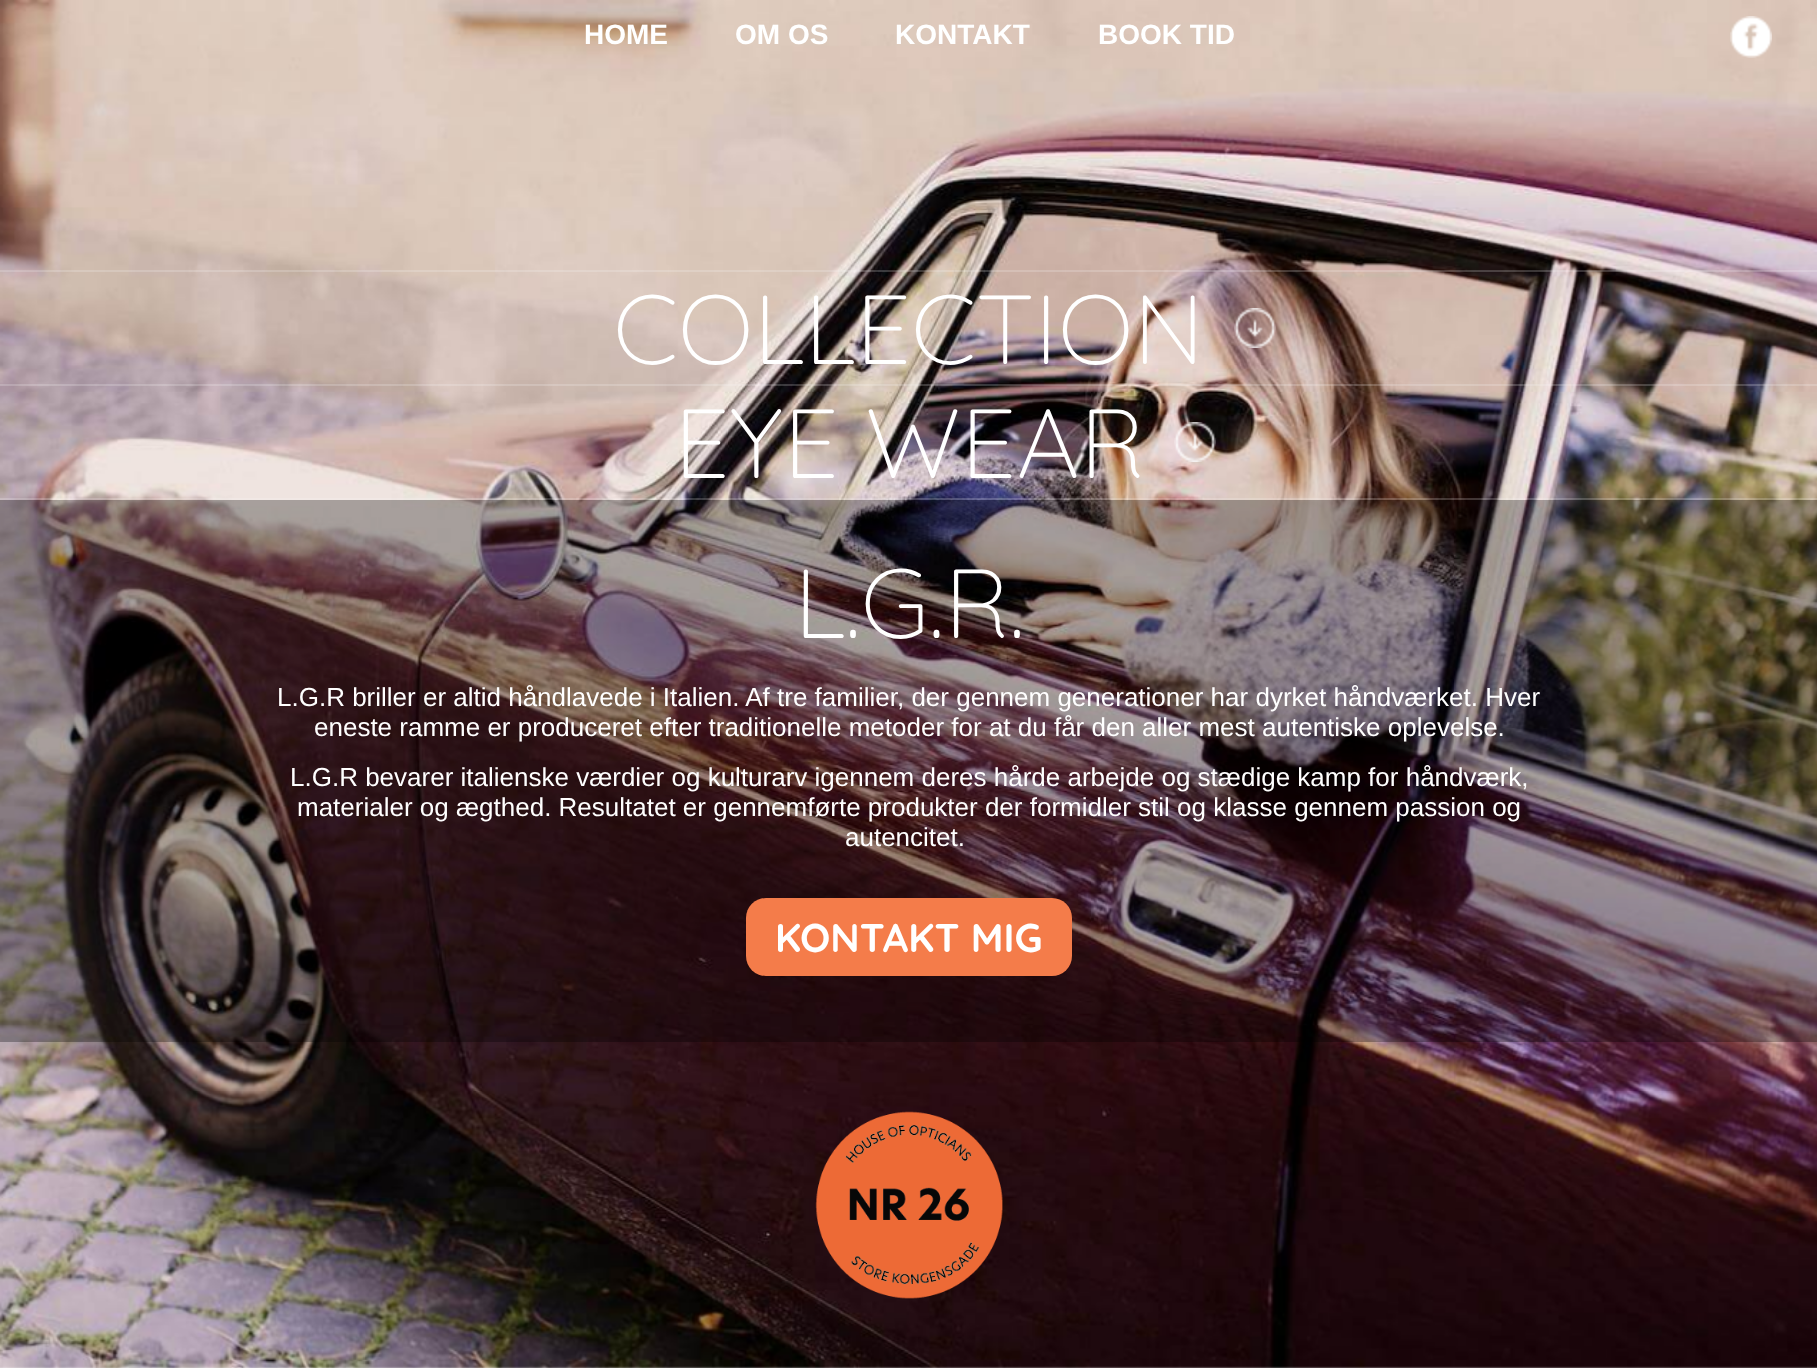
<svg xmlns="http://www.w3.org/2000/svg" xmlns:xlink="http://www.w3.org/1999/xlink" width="1817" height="1368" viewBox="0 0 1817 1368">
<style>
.cls-1{font:bold 28px Liberation Sans;fill:#ffffff}
.cls-2{font:300 98px Quicksand;fill:#ffffff}
.cls-3{font:26px Liberation Sans;fill:#ffffff}
.cls-4{font:300 40px 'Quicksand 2';fill:#ffffff}
</style>
<rect width="100%" height="100%" fill="#ffffff"/>
<image xlink:href="image0.png" x="0" y="0" width="1817" height="1368"/>
<image xlink:href="image1.png" x="1730" y="16" width="42" height="42"/>
<rect fill="#fafafa" fill-opacity="0.2" x="0" y="270" width="1817" height="2"/>
<rect fill="#fafafa" fill-opacity="0.2" x="0" y="384" width="1817" height="2"/>
<image xlink:href="image2.png" x="1234" y="308" width="42" height="40"/>
<rect fill="#fafafa" fill-opacity="0.2" x="0" y="498" width="1817" height="2"/>
<image xlink:href="image3.png" x="1174" y="422" width="42" height="40"/>
<rect fill="#000000" fill-opacity="0.3" x="0" y="500" width="1817" height="542"/>
<rect fill="#f47c4a" x="746" y="898" width="326" height="78" rx="20"/>
<image xlink:href="image4.png" x="815" y="1111" width="188" height="188"/>
<text class="cls-1" x="584" y="44">HOME</text>
<text class="cls-1" x="735" y="44">OM OS</text>
<text class="cls-1" x="895" y="44">KONTAKT</text>
<text class="cls-1" x="1098" y="44">BOOK TID</text>
<text class="cls-2" x="613" y="364">COLLECTION</text>
<text class="cls-2" x="674" y="478">EYE WEAR</text>
<text class="cls-2" x="794" y="638">L.G.R.</text>
<text class="cls-3" x="277" y="706">L.G.R briller er altid håndlavede i Italien. Af tre familier, der gennem generationer har dyrket håndværket. Hver</text>
<text class="cls-3" x="314" y="736">eneste ramme er produceret efter traditionelle metoder for at du får den aller mest autentiske oplevelse.</text>
<text class="cls-3" x="290" y="786">L.G.R bevarer italienske værdier og kulturarv igennem deres hårde arbejde og stædige kamp for håndværk,</text>
<text class="cls-3" x="297" y="816">materialer og ægthed. Resultatet er gennemførte produkter der formidler stil og klasse gennem passion og</text>
<text class="cls-3" x="845" y="846">autencitet.</text>
<text class="cls-4" x="775" y="952">KONTAKT MIG</text>
</svg>
